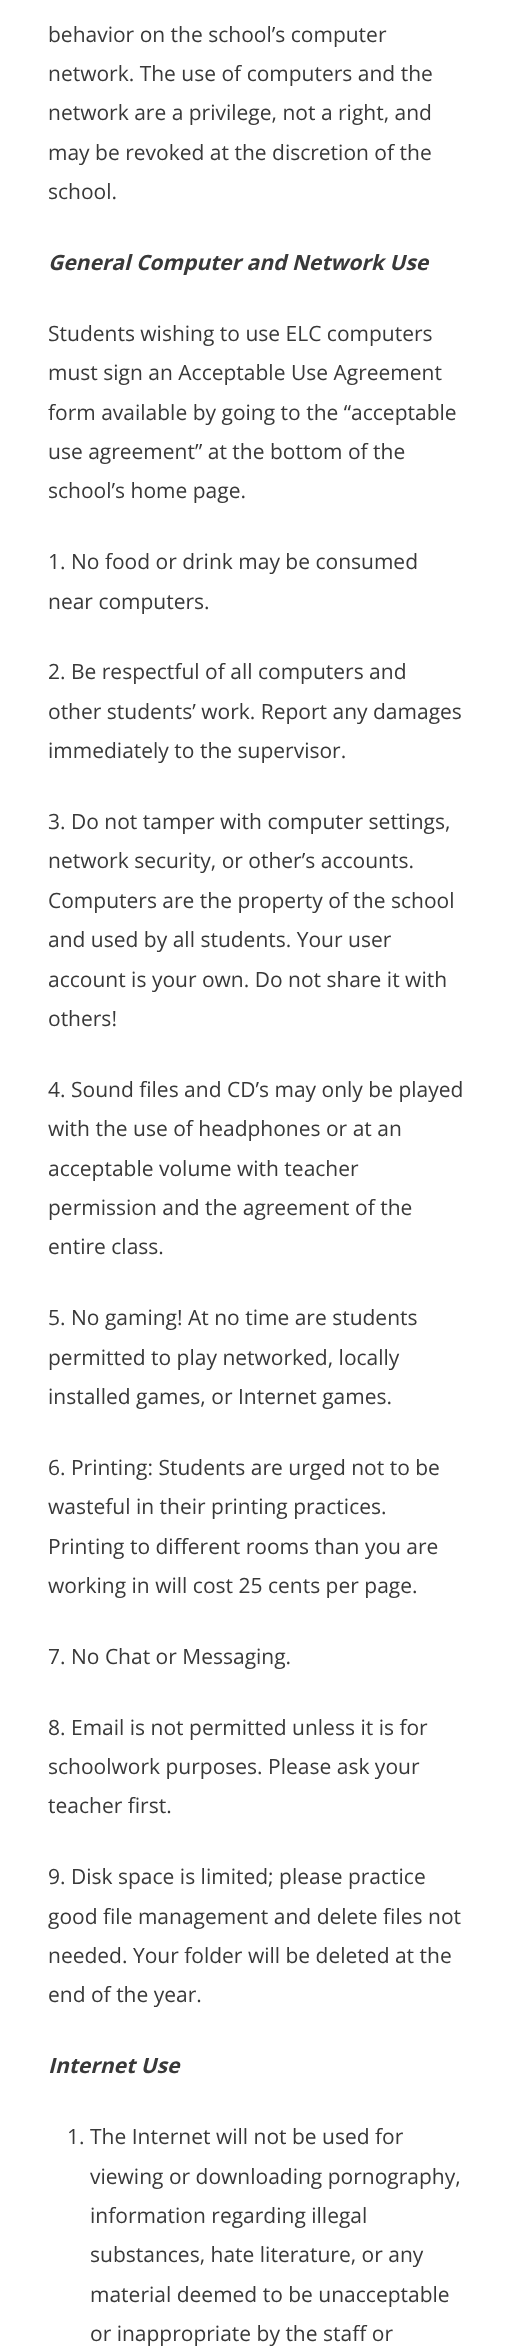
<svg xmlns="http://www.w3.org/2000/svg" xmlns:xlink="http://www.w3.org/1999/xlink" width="512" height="2350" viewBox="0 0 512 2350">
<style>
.cls-1{font:21px Open Sans;fill:#393939}
.cls-2{font:italic bold 21px Open Sans;fill:#393939}
</style>
<rect width="100%" height="100%" fill="#ffffff"/>
<text class="cls-1"><tspan x="48" y="42">behavior on the school’s computer</tspan><tspan x="48" y="81">network. The use of computers and the</tspan><tspan x="48" y="120">network are a privilege, not a right, and</tspan><tspan x="48" y="160">may be revoked at the discretion of the</tspan><tspan x="48" y="199">school.</tspan></text>
<text class="cls-2" x="48" y="270">General Computer and Network Use</text>
<text class="cls-1"><tspan x="48" y="341">Students wishing to use ELC computers</tspan><tspan x="48" y="380">must sign an Acceptable Use Agreement</tspan><tspan x="48" y="420">form available by going to the “acceptable</tspan><tspan x="48" y="459">use agreement” at the bottom of the</tspan><tspan x="48" y="498">school’s home page.</tspan></text>
<text class="cls-1"><tspan x="48" y="569">1. No food or drink may be consumed</tspan><tspan x="48" y="609">near computers.</tspan></text>
<text class="cls-1"><tspan x="48" y="679">2. Be respectful of all computers and</tspan><tspan x="48" y="719">other students’ work. Report any damages</tspan><tspan x="48" y="758">immediately to the supervisor.</tspan></text>
<text class="cls-1"><tspan x="48" y="829">3. Do not tamper with computer settings,</tspan><tspan x="48" y="868">network security, or other’s accounts.</tspan><tspan x="48" y="908">Computers are the property of the school</tspan><tspan x="48" y="947">and used by all students. Your user</tspan><tspan x="48" y="987">account is your own. Do not share it with</tspan><tspan x="48" y="1026">others!</tspan></text>
<text class="cls-1"><tspan x="48" y="1097">4. Sound files and CD’s may only be played</tspan><tspan x="48" y="1136">with the use of headphones or at an</tspan><tspan x="48" y="1176">acceptable volume with teacher</tspan><tspan x="48" y="1215">permission and the agreement of the</tspan><tspan x="48" y="1254">entire class.</tspan></text>
<text class="cls-1"><tspan x="48" y="1325">5. No gaming! At no time are students</tspan><tspan x="48" y="1365">permitted to play networked, locally</tspan><tspan x="48" y="1404">installed games, or Internet games.</tspan></text>
<text class="cls-1"><tspan x="48" y="1475">6. Printing: Students are urged not to be</tspan><tspan x="48" y="1514">wasteful in their printing practices.</tspan><tspan x="48" y="1554">Printing to different rooms than you are</tspan><tspan x="48" y="1593">working in will cost 25 cents per page.</tspan></text>
<text class="cls-1" x="48" y="1664">7. No Chat or Messaging.</text>
<text class="cls-1"><tspan x="48" y="1735">8. Email is not permitted unless it is for</tspan><tspan x="48" y="1774">schoolwork purposes. Please ask your</tspan><tspan x="48" y="1813">teacher first.</tspan></text>
<text class="cls-1"><tspan x="48" y="1884">9. Disk space is limited; please practice</tspan><tspan x="48" y="1924">good file management and delete files not</tspan><tspan x="48" y="1963">needed. Your folder will be deleted at the</tspan><tspan x="48" y="2002">end of the year.</tspan></text>
<text class="cls-2" x="48" y="2073">Internet Use</text>
<text class="cls-1" x="67" y="2144">1. The Internet will not be used for</text>
<text class="cls-1"><tspan x="90" y="2184">viewing or downloading pornography,</tspan><tspan x="90" y="2223">information regarding illegal</tspan><tspan x="90" y="2262">substances, hate literature, or any</tspan><tspan x="90" y="2302">material deemed to be unacceptable</tspan><tspan x="90" y="2341">or inappropriate by the staff or</tspan></text>
</svg>
